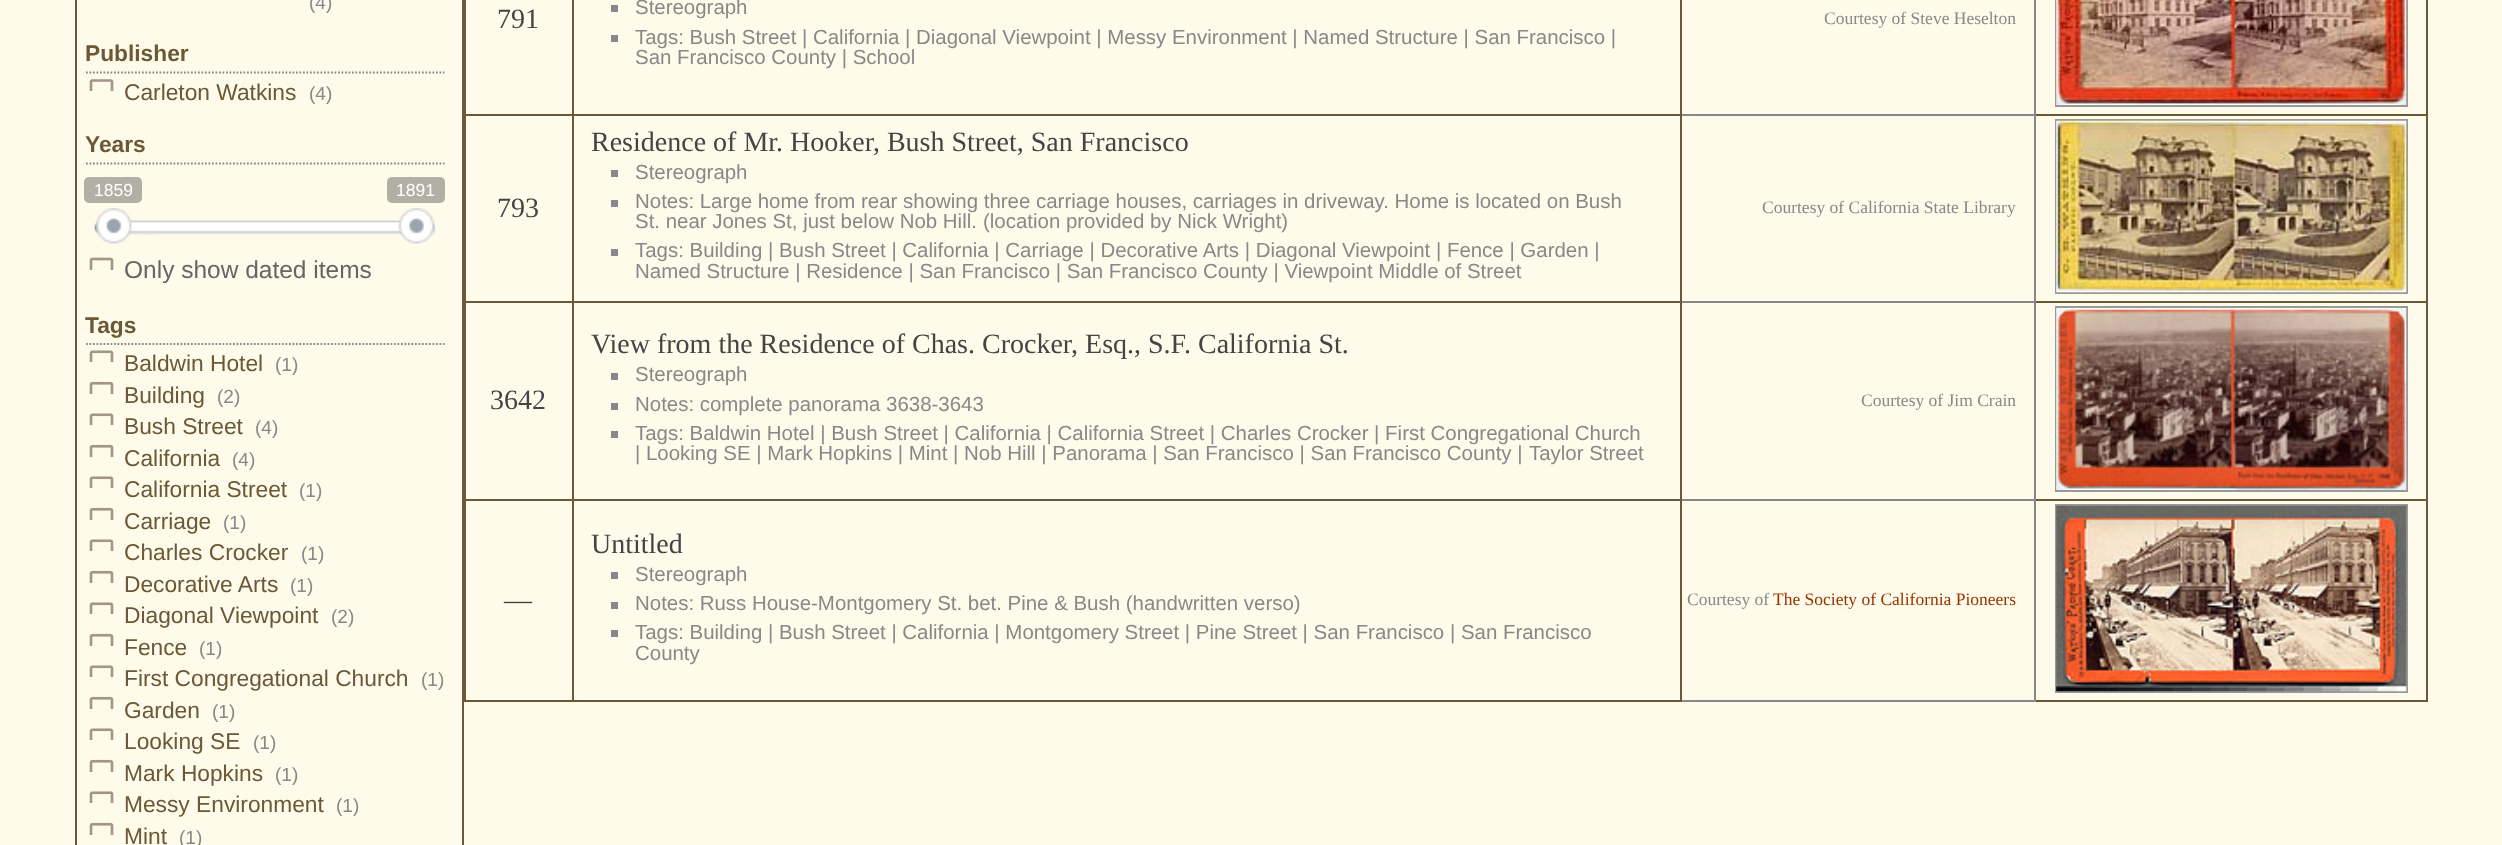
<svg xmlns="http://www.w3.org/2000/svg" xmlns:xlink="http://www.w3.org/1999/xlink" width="2502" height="845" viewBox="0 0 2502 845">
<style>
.cls-1{font:19px Liberation Sans;fill:#888888}
.cls-2{font:bold 22.75px Liberation Sans;fill:#6c5837}
.cls-3{font:22.75px Liberation Sans;fill:#6c5837}
.cls-4{font:17.5px Liberation Sans;fill:#ffffff}
.cls-5{font:24.5px Liberation Sans;fill:#666666}
.cls-6{font:28px Liberation Serif;fill:#444444}
.cls-7{font:20.45px Liberation Sans;fill:#888888}
.cls-8{font:17.5px Liberation Serif;fill:#888888}
.cls-9{font:17.5px Liberation Serif;fill:#993300}
</style>
<rect width="100%" height="100%" fill="#fefbea"/>
<rect fill="#6c5837" x="462" y="0" width="2" height="845"/>
<rect fill="#6c5837" x="75" y="0" width="2" height="845"/>
<path fill="none" stroke="#888888" stroke-width="1.8" stroke-dasharray="1.75 1.75" d="M86 72.5H444.5"/>
<image xlink:href="image0.png" x="89" y="79" width="25" height="12"/>
<path fill="none" stroke="#888888" stroke-width="1.8" stroke-dasharray="1.75 1.75" d="M86 163.5H444.5"/>
<rect fill="#b2b0a4" x="84" y="177" width="58" height="26" rx="5"/>
<rect fill="#b2b0a4" x="387" y="177" width="58" height="26" rx="5"/>
<image xlink:href="image1.png" x="94" y="221" width="38" height="14"/>
<image xlink:href="image2.png" x="127" y="232" width="276" height="3"/>
<image xlink:href="image3.png" x="397" y="221" width="39" height="14"/>
<image xlink:href="image5.png" x="115" y="220" width="300" height="15"/>
<image xlink:href="image4.png" x="96" y="208" width="36" height="36"/>
<image xlink:href="image6.png" x="398" y="208" width="37" height="36"/>
<image xlink:href="image7.png" x="89" y="257" width="25" height="13"/>
<path fill="none" stroke="#888888" stroke-width="1.8" stroke-dasharray="1.75 1.75" d="M86 344H444.5"/>
<image xlink:href="image8.png" x="89" y="350" width="25" height="12"/>
<image xlink:href="image9.png" x="89" y="381" width="25" height="13"/>
<image xlink:href="image8.png" x="89" y="413" width="25" height="12"/>
<image xlink:href="image9.png" x="89" y="444" width="25" height="13"/>
<image xlink:href="image8.png" x="89" y="476" width="25" height="12"/>
<image xlink:href="image9.png" x="89" y="507" width="25" height="13"/>
<image xlink:href="image8.png" x="89" y="539" width="25" height="12"/>
<image xlink:href="image9.png" x="89" y="570" width="25" height="13"/>
<image xlink:href="image8.png" x="89" y="602" width="25" height="12"/>
<image xlink:href="image9.png" x="89" y="633" width="25" height="13"/>
<image xlink:href="image8.png" x="89" y="665" width="25" height="12"/>
<image xlink:href="image9.png" x="89" y="696" width="25" height="13"/>
<image xlink:href="image8.png" x="89" y="728" width="25" height="12"/>
<image xlink:href="image9.png" x="89" y="759" width="25" height="13"/>
<image xlink:href="image8.png" x="89" y="791" width="25" height="12"/>
<image xlink:href="image9.png" x="89" y="822" width="25" height="13"/>
<rect fill="#6c5837" x="2426" y="0" width="2" height="702"/>
<rect fill="#6c5837" x="464" y="700" width="1963" height="2"/>
<rect fill="#6c5837" x="464" y="0" width="2" height="702"/>
<rect fill="#888888" x="2034" y="499" width="2" height="203"/>
<rect fill="#6c5837" x="2034" y="499" width="393" height="2"/>
<rect fill="#888888" x="2034" y="301" width="2" height="200"/>
<rect fill="#6c5837" x="2034" y="301" width="393" height="2"/>
<rect fill="#888888" x="2034" y="114" width="2" height="189"/>
<rect fill="#6c5837" x="2034" y="114" width="393" height="2"/>
<rect fill="#888888" x="2034" y="0" width="2" height="116"/>
<rect fill="#6c5837" x="572" y="114" width="1110" height="2"/>
<rect fill="#6c5837" x="572" y="301" width="1110" height="2"/>
<rect fill="#6c5837" x="572" y="499" width="1110" height="2"/>
<rect fill="#888888" x="1680" y="700" width="355" height="2"/>
<rect fill="#6c5837" x="1680" y="499" width="2" height="203"/>
<rect fill="#888888" x="1680" y="499" width="355" height="2"/>
<rect fill="#6c5837" x="1680" y="301" width="2" height="200"/>
<rect fill="#888888" x="1680" y="301" width="355" height="2"/>
<rect fill="#6c5837" x="1680" y="114" width="2" height="189"/>
<rect fill="#888888" x="1680" y="114" width="355" height="2"/>
<rect fill="#6c5837" x="1680" y="0" width="2" height="116"/>
<rect fill="#6c5837" x="572" y="499" width="2" height="203"/>
<rect fill="#6c5837" x="464" y="499" width="110" height="2"/>
<rect fill="#6c5837" x="572" y="301" width="2" height="200"/>
<rect fill="#6c5837" x="464" y="301" width="110" height="2"/>
<rect fill="#6c5837" x="572" y="114" width="2" height="189"/>
<rect fill="#6c5837" x="464" y="114" width="110" height="2"/>
<rect fill="#6c5837" x="572" y="0" width="2" height="116"/>
<rect fill="#888888" x="611" y="5" width="7" height="7"/>
<rect fill="#888888" x="611" y="35" width="7" height="7"/>
<rect fill="none" stroke="#999999" stroke-width="2" x="2056" y="-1" width="351" height="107"/>
<image xlink:href="image10.png" x="2056" y="0" width="351" height="105"/>
<rect fill="#888888" x="611" y="170" width="7" height="7"/>
<rect fill="#888888" x="611" y="200" width="7" height="7"/>
<rect fill="#888888" x="611" y="249" width="7" height="7"/>
<rect fill="none" stroke="#999999" stroke-width="2" x="2056" y="120" width="351" height="173"/>
<image xlink:href="image11.png" x="2056" y="120" width="351" height="173"/>
<rect fill="#888888" x="611" y="373" width="7" height="7"/>
<rect fill="#888888" x="611" y="403" width="7" height="7"/>
<rect fill="#888888" x="611" y="431" width="7" height="7"/>
<rect fill="none" stroke="#999999" stroke-width="2" x="2056" y="307" width="351" height="184"/>
<image xlink:href="image12.png" x="2056" y="308" width="351" height="182"/>
<rect fill="#888888" x="611" y="572" width="7" height="7"/>
<rect fill="#888888" x="611" y="602" width="7" height="7"/>
<rect fill="#888888" x="611" y="630" width="7" height="7"/>
<rect fill="none" stroke="#999999" stroke-width="2" x="2056" y="505" width="351" height="187"/>
<image xlink:href="image13.png" x="2056" y="505" width="351" height="187"/>
<text class="cls-1" x="309" y="9">(4)</text>
<text class="cls-2" x="85" y="61">Publisher</text>
<text class="cls-3" x="124" y="100">Carleton Watkins</text>
<text class="cls-1" x="309" y="100">(4)</text>
<text class="cls-2" x="85" y="152">Years</text>
<text class="cls-4" x="94" y="196">1859</text>
<text class="cls-4" x="396" y="196">1891</text>
<text class="cls-5" x="124" y="278">Only show dated items</text>
<text class="cls-2" x="85" y="333">Tags</text>
<text class="cls-3" x="124" y="371">Baldwin Hotel</text>
<text class="cls-1" x="275" y="371">(1)</text>
<text class="cls-3" x="124" y="403">Building</text>
<text class="cls-1" x="217" y="403">(2)</text>
<text class="cls-3" x="124" y="434">Bush Street</text>
<text class="cls-1" x="255" y="434">(4)</text>
<text class="cls-3" x="124" y="466">California</text>
<text class="cls-1" x="232" y="466">(4)</text>
<text class="cls-3" x="124" y="497">California Street</text>
<text class="cls-1" x="299" y="497">(1)</text>
<text class="cls-3" x="124" y="529">Carriage</text>
<text class="cls-1" x="223" y="529">(1)</text>
<text class="cls-3" x="124" y="560">Charles Crocker</text>
<text class="cls-1" x="301" y="560">(1)</text>
<text class="cls-3" x="124" y="592">Decorative Arts</text>
<text class="cls-1" x="290" y="592">(1)</text>
<text class="cls-3" x="124" y="623">Diagonal Viewpoint</text>
<text class="cls-1" x="331" y="623">(2)</text>
<text class="cls-3" x="124" y="655">Fence</text>
<text class="cls-1" x="199" y="655">(1)</text>
<text class="cls-3" x="124" y="686">First Congregational Church</text>
<text class="cls-1" x="421" y="686">(1)</text>
<text class="cls-3" x="124" y="718">Garden</text>
<text class="cls-1" x="212" y="718">(1)</text>
<text class="cls-3" x="124" y="749">Looking SE</text>
<text class="cls-1" x="253" y="749">(1)</text>
<text class="cls-3" x="124" y="781">Mark Hopkins</text>
<text class="cls-1" x="275" y="781">(1)</text>
<text class="cls-3" x="124" y="812">Messy Environment</text>
<text class="cls-1" x="336" y="812">(1)</text>
<text class="cls-3" x="124" y="844">Mint</text>
<text class="cls-1" x="179" y="844">(1)</text>
<text class="cls-6" x="497" y="28">791</text>
<text class="cls-7"><tspan x="635" y="14">Stereograph</tspan><tspan x="635" y="44">Tags: Bush Street | California | Diagonal Viewpoint | Messy Environment | Named Structure | San Francisco |</tspan><tspan x="635" y="64">San Francisco County | School</tspan></text>
<text class="cls-8" x="1824" y="24">Courtesy of Steve Heselton</text>
<text class="cls-6" x="497" y="217">793</text>
<text class="cls-6" x="591" y="151">Residence of Mr. Hooker, Bush Street, San Francisco</text>
<text class="cls-7"><tspan x="635" y="179">Stereograph</tspan><tspan x="635" y="208">Notes: Large home from rear showing three carriage houses, carriages in driveway. Home is located on Bush</tspan><tspan x="635" y="228">St. near Jones St, just below Nob Hill.</tspan></text>
<text class="cls-7" x="983" y="228">(location provided by Nick Wright)</text>
<text class="cls-7"><tspan x="635" y="257">Tags: Building | Bush Street | California | Carriage | Decorative Arts | Diagonal Viewpoint | Fence | Garden |</tspan><tspan x="635" y="278">Named Structure | Residence | San Francisco | San Francisco County | Viewpoint Middle of Street</tspan></text>
<text class="cls-8" x="1762" y="213">Courtesy of California State Library</text>
<text class="cls-6" x="490" y="409">3642</text>
<text class="cls-6" x="591" y="353">View from the Residence of Chas. Crocker, Esq., S.F. California St.</text>
<text class="cls-7"><tspan x="635" y="381">Stereograph</tspan><tspan x="635" y="411">Notes: complete panorama 3638-3643</tspan><tspan x="635" y="440">Tags: Baldwin Hotel | Bush Street | California | California Street | Charles Crocker | First Congregational Church</tspan><tspan x="635" y="460">| Looking SE | Mark Hopkins | Mint | Nob Hill | Panorama | San Francisco | San Francisco County |</tspan></text>
<text class="cls-7" x="1529" y="460">Taylor Street</text>
<text class="cls-8" x="1861" y="406">Courtesy of Jim Crain</text>
<text class="cls-6" x="504" y="609">—</text>
<text class="cls-6" x="591" y="553">Untitled</text>
<text class="cls-7"><tspan x="635" y="581">Stereograph</tspan><tspan x="635" y="610">Notes: Russ House-Montgomery St. bet. Pine &amp; Bush (handwritten verso)</tspan><tspan x="635" y="639">Tags: Building | Bush Street | California | Montgomery Street | Pine Street | San Francisco | San Francisco</tspan><tspan x="635" y="660">County</tspan></text>
<text class="cls-8" x="1687" y="605">Courtesy of</text>
<text class="cls-9" x="1773" y="605">The Society of California Pioneers</text>
</svg>
